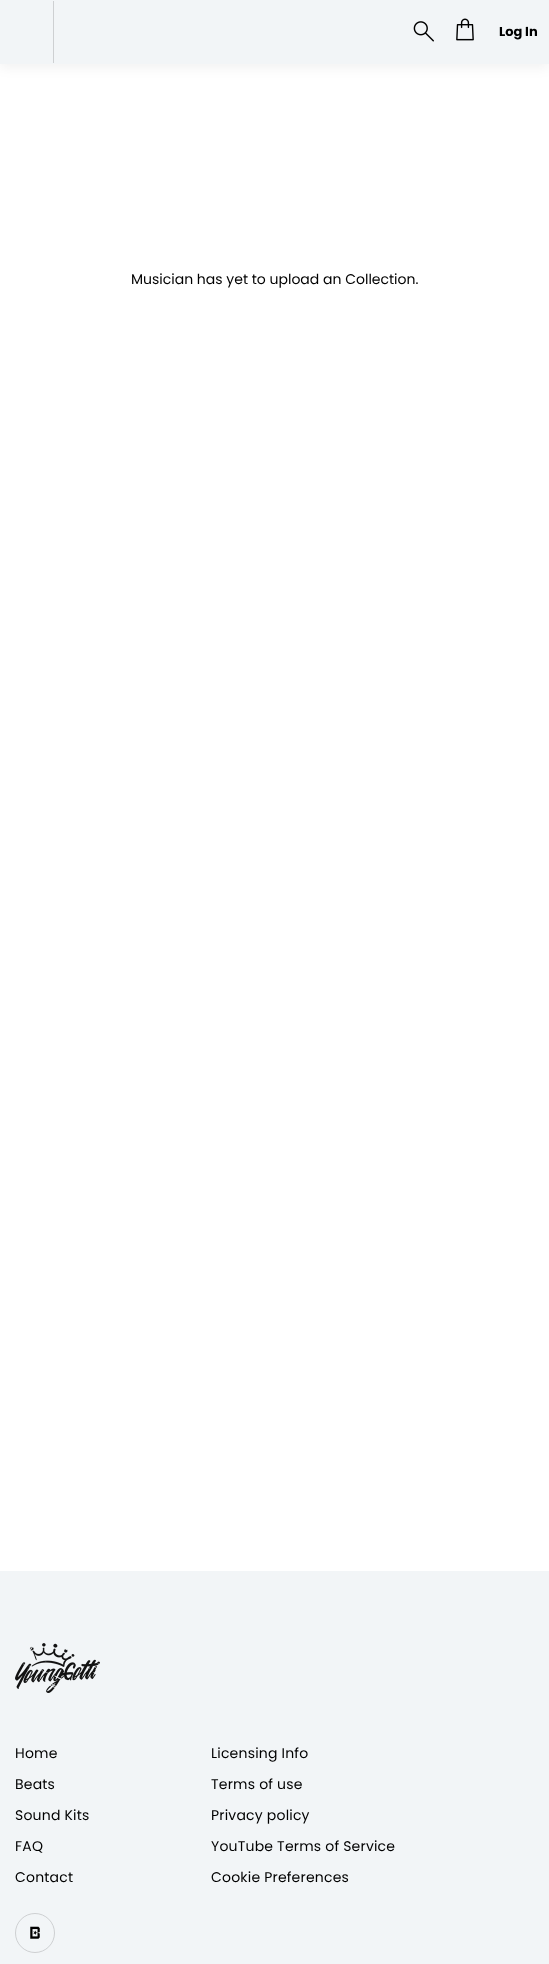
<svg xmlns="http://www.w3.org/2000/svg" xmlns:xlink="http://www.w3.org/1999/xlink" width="549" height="1964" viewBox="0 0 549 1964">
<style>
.cls-1{font:bold 13px Poppins;fill:#000000}
.cls-2{font:14px Poppins;fill:#000000}
.cls-3{font:14px Poppins;letter-spacing:0.2px;fill:#000000}
</style>
<rect width="100%" height="100%" fill="#f2f5f7"/>
<rect fill="#ffffff" x="0" y="64" width="549" height="1507"/>
<rect fill="#000000" fill-opacity="0.05" filter="blur(6px)" x="0" y="4" width="549" height="64"/>
<rect fill="#f2f5f7" x="0" y="0" width="549" height="64"/>
<rect fill="#ced0d2" x="53" y="1" width="1" height="62"/>
<image xlink:href="image0.png" x="413" y="21" width="21" height="21"/>
<image xlink:href="image1.png" x="456" y="18" width="18" height="23"/>
<image xlink:href="image2.png" x="15" y="1643" width="85" height="50"/>
<circle fill="none" stroke="#ced0d2" cx="35" cy="1933" r="19.5"/>
<image xlink:href="image3.png" x="30" y="1926" width="10" height="13"/>
<text class="cls-1" x="499" y="36">Log In</text>
<text class="cls-2" x="131" y="284">Musician has yet to upload an Collection.</text>
<text class="cls-3" x="15" y="1758">Home</text>
<text class="cls-3" x="15" y="1789">Beats</text>
<text class="cls-3" x="15" y="1820">Sound Kits</text>
<text class="cls-3" x="15" y="1851">FAQ</text>
<text class="cls-3" x="15" y="1882">Contact</text>
<text class="cls-3" x="211" y="1758">Licensing Info</text>
<text class="cls-3" x="211" y="1789">Terms of use</text>
<text class="cls-3" x="211" y="1820">Privacy policy</text>
<text class="cls-3" x="211" y="1851">YouTube Terms of Service</text>
<text class="cls-3" x="211" y="1882">Cookie Preferences</text>
</svg>
